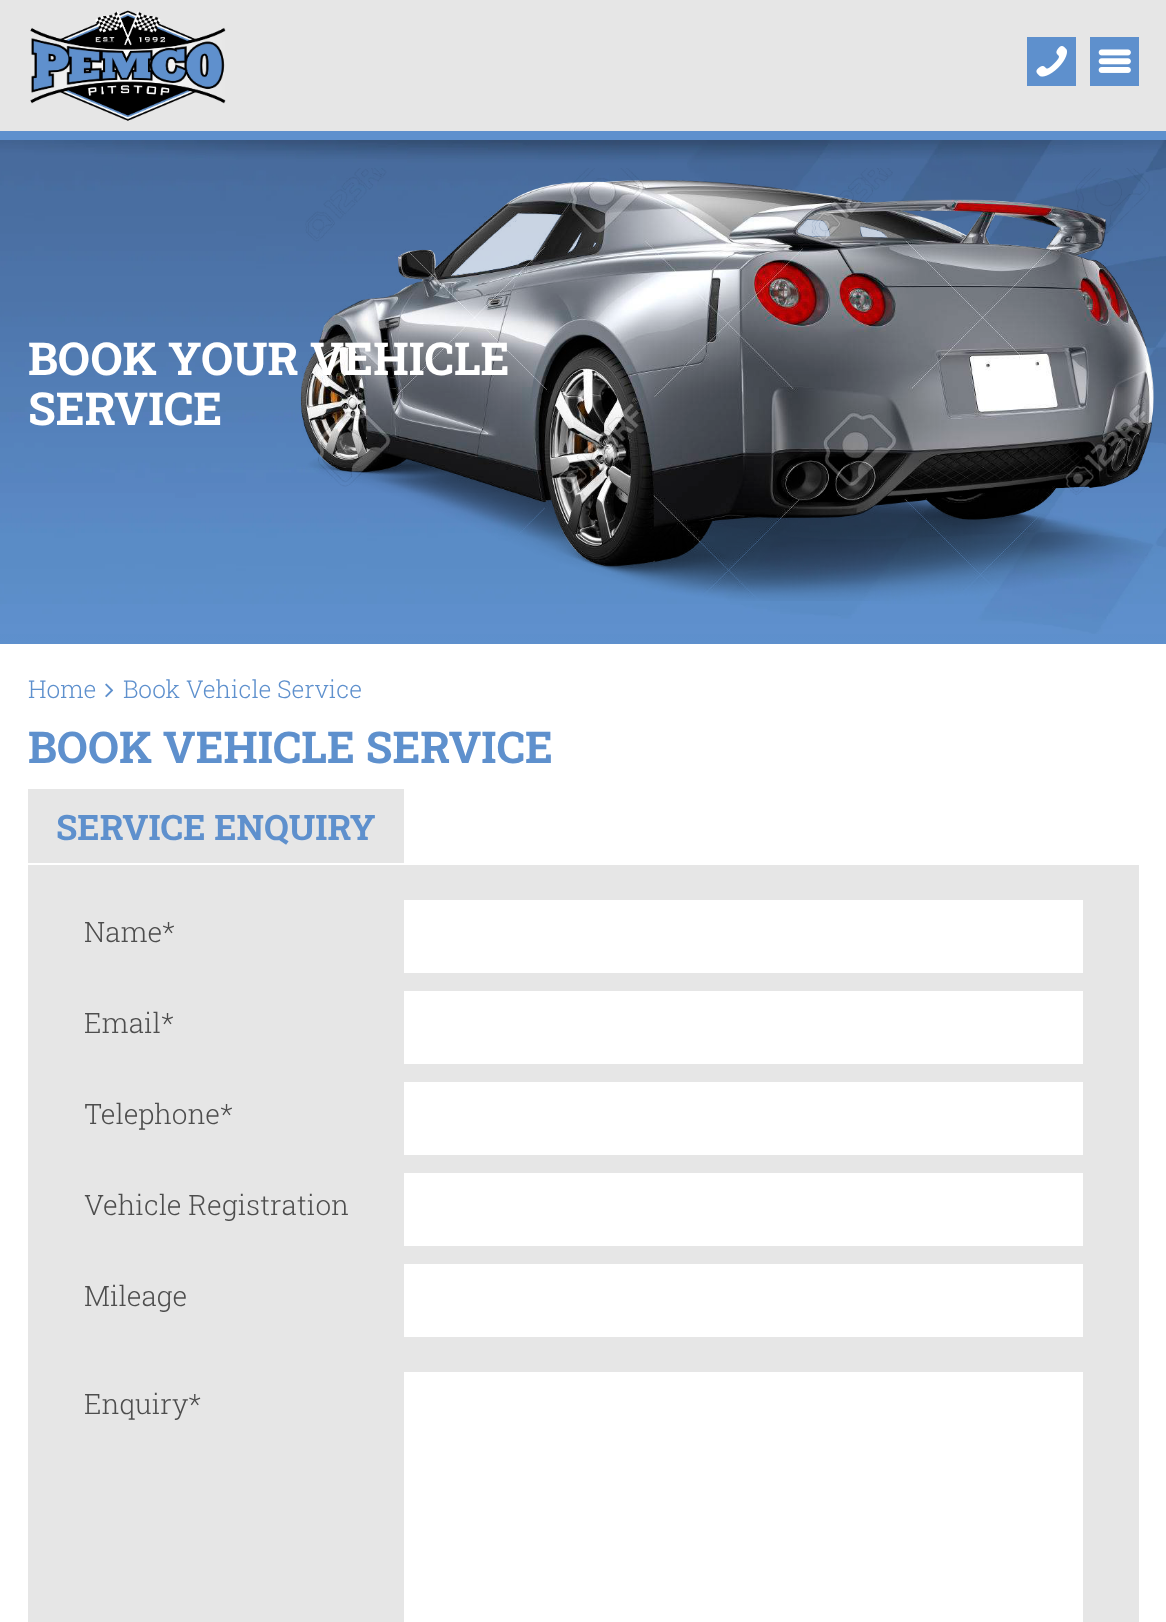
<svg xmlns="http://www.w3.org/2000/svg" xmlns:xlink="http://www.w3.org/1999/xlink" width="1166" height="1622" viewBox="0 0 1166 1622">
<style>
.cls-1{font:bold 45.5px Roboto Slab;fill:#ffffff}
.cls-2{font:300 24.5px Roboto Slab;fill:#5e90cd}
.cls-3{font:bold 43.8px Roboto Slab;fill:#5e90cd}
.cls-4{font:bold 35px Roboto Slab;fill:#5e90cd}
.cls-5{font:300 28px Roboto Slab;fill:#4d4d4d}
</style>
<defs>
<linearGradient id="g1" gradientUnits="userSpaceOnUse" x1="584" y1="140" x2="584" y2="644"><stop offset="0" stop-color="#476b9d"/><stop offset="1" stop-color="#5e90cd"/></linearGradient>
</defs>
<rect width="100%" height="100%" fill="#ffffff"/>
<rect fill="#e6e6e6" x="0" y="0" width="1166" height="131"/>
<rect fill="#5e90cd" x="0" y="131" width="1166" height="9"/>
<image xlink:href="image0.png" x="30" y="10" width="196" height="111"/>
<rect fill="#5e90cd" x="1027" y="37" width="49" height="49"/>
<image xlink:href="image1.png" x="1036" y="46" width="31" height="31"/>
<rect fill="#5e90cd" x="1090" y="37" width="49" height="49"/>
<image xlink:href="image2.png" x="1098" y="49" width="33" height="24"/>
<rect fill="url(#g1)" x="0" y="634" width="1166" height="10"/>
<image xlink:href="image3.png" x="0" y="140" width="1166" height="494"/>
<image xlink:href="image4.png" x="300" y="168" width="854" height="433"/>
<image xlink:href="image5.png" x="105" y="683" width="9" height="15"/>
<rect fill="#e6e6e6" x="28" y="789" width="376" height="74"/>
<rect fill="#e6e6e6" x="28" y="865" width="1111" height="757"/>
<rect fill="#ffffff" x="404" y="900" width="679" height="73"/>
<rect fill="#ffffff" x="404" y="991" width="679" height="73"/>
<rect fill="#ffffff" x="404" y="1082" width="679" height="73"/>
<rect fill="#ffffff" x="404" y="1173" width="679" height="73"/>
<rect fill="#ffffff" x="404" y="1264" width="679" height="73"/>
<rect fill="#ffffff" x="404" y="1372" width="679" height="250"/>
<text class="cls-1"><tspan x="28" y="375">BOOK YOUR VEHICLE</tspan><tspan x="28" y="425">SERVICE</tspan></text>
<text class="cls-2" x="28" y="698">Home</text>
<text class="cls-2" x="123" y="698">Book Vehicle Service</text>
<text class="cls-3" x="28" y="763">BOOK VEHICLE SERVICE</text>
<text class="cls-4" x="56" y="840">SERVICE ENQUIRY</text>
<text class="cls-5" x="84" y="942">Name*</text>
<text class="cls-5" x="84" y="1033">Email*</text>
<text class="cls-5" x="84" y="1124">Telephone*</text>
<text class="cls-5" x="84" y="1215">Vehicle Registration</text>
<text class="cls-5" x="84" y="1306">Mileage</text>
<text class="cls-5" x="84" y="1414">Enquiry*</text>
</svg>
